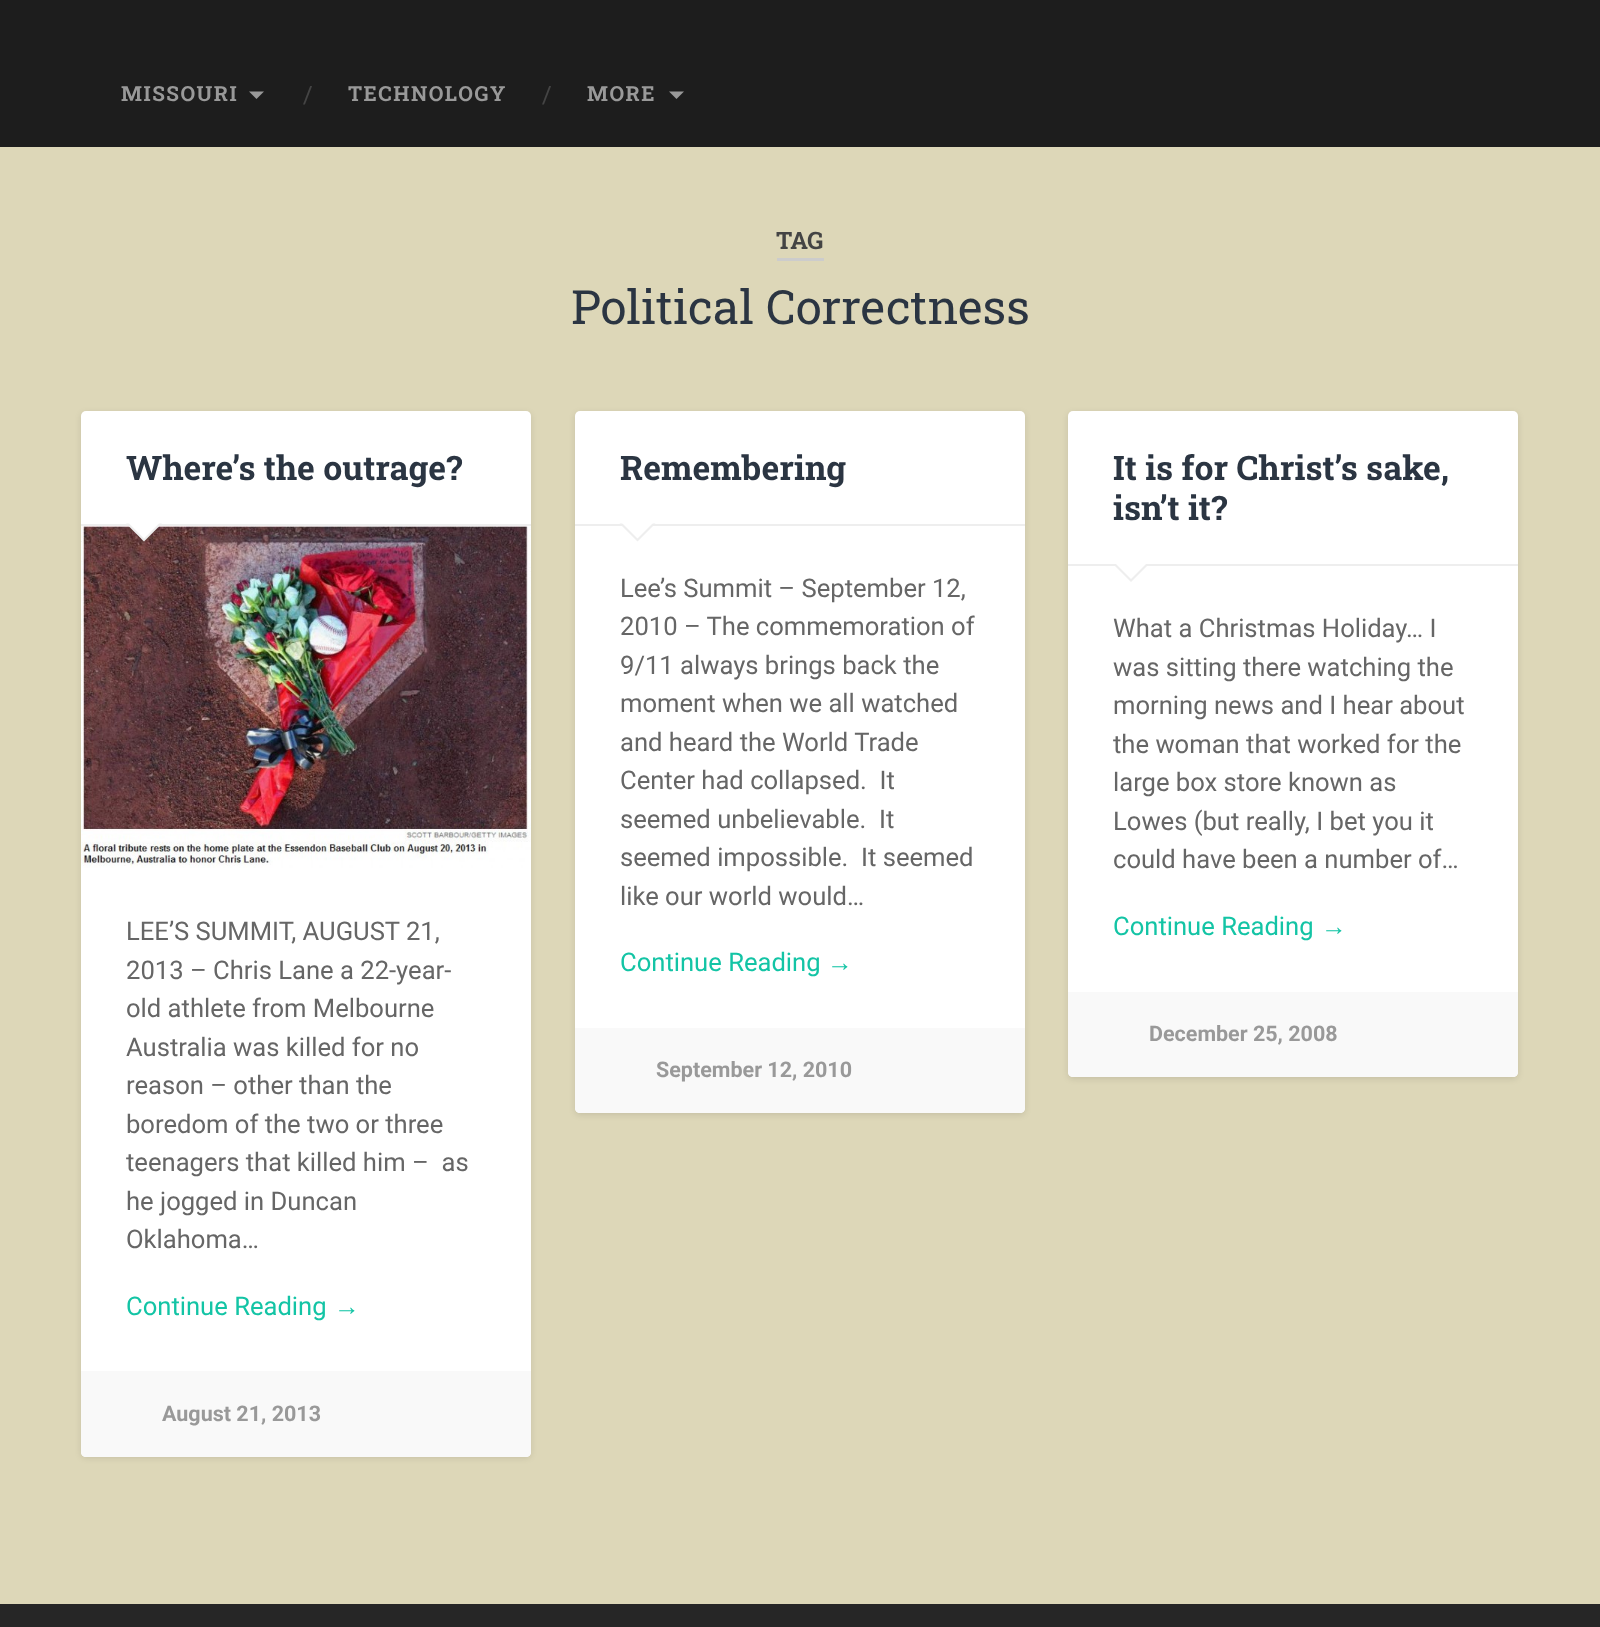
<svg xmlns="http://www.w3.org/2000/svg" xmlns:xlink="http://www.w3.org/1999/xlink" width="1600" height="1627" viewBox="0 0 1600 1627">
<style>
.cls-1{font:bold 20.75px Roboto Slab;letter-spacing:1.5px;fill:#999999}
.cls-2{font:24px Roboto Slab;fill:#444444}
.cls-3{font:bold 24px Roboto Slab;fill:#444444}
.cls-4{font:47.25px Roboto Slab;fill:#2b3542}
.cls-5{font:bold 33.75px Roboto Slab;fill:#2b3542}
.cls-6{font:25.6px Roboto;fill:#666666}
.cls-7{font:25.6px Roboto;fill:#13c4a5}
.cls-8{font:25.6px Liberation Sans;fill:#13c4a5}
.cls-9{font:bold 21.5px Roboto;fill:#999999}
</style>
<rect width="100%" height="100%" fill="#ddd7b8"/>
<rect fill="#1d1d1d" x="0" y="0" width="1600" height="147"/>
<path fill="#999999" d="M249 91.5H264L256.5 99Z"/>
<path fill="#999999" d="M669 91.5H684L676.5 99Z"/>
<rect fill="#cccccc" x="777" y="258" width="47" height="3"/>
<rect fill="#000000" fill-opacity="0.1" filter="blur(3px)" x="81" y="413" width="450" height="1045" rx="5"/>
<rect fill="#ffffff" x="81" y="411" width="450" height="1046" rx="5"/>
<rect fill="#eeeeee" x="81" y="524" width="450" height="2"/>
<image xlink:href="image0.png" x="81" y="526" width="450" height="342"/>
<path fill="#eeeeee" d="M126 523.5H162L144 541.5Z"/>
<path fill="#ffffff" d="M127.5 522H160.5L144 538.5Z"/>
<path fill="#f9f9f9" d="M81 1371H531V1452C531 1455 529 1457 526 1457H86C83 1457 81 1455 81 1452Z"/>
<rect fill="#000000" fill-opacity="0.1" filter="blur(3px)" x="575" y="413" width="450" height="702" rx="5"/>
<rect fill="#ffffff" x="575" y="411" width="450" height="702" rx="5"/>
<rect fill="#eeeeee" x="575" y="524" width="450" height="2"/>
<path fill="#eeeeee" d="M619.5 523.5H655.5L637.5 541.5Z"/>
<path fill="#ffffff" d="M621 522H654L637.5 538.5Z"/>
<path fill="#f9f9f9" d="M575 1028H1025V1108C1025 1111 1023 1113 1020 1113H580C577 1113 575 1111 575 1108Z"/>
<rect fill="#000000" fill-opacity="0.1" filter="blur(3px)" x="1068" y="413" width="450" height="666" rx="5"/>
<rect fill="#ffffff" x="1068" y="411" width="450" height="666" rx="5"/>
<rect fill="#eeeeee" x="1068" y="564" width="450" height="2"/>
<path fill="#eeeeee" d="M1113 564H1149L1131 582Z"/>
<path fill="#ffffff" d="M1114.5 562.5H1147.5L1131 579Z"/>
<path fill="#f9f9f9" d="M1068 992H1518V1072C1518 1075 1516 1077 1513 1077H1073C1070 1077 1068 1075 1068 1072Z"/>
<rect fill="#262626" x="0" y="1604" width="1600" height="23"/>
<text class="cls-1" x="121" y="101">MISSOURI</text>
<text class="cls-2" x="303" y="103">/</text>
<text class="cls-1" x="348" y="101">TECHNOLOGY</text>
<text class="cls-2" x="542" y="103">/</text>
<text class="cls-1" x="587" y="101">MORE</text>
<text class="cls-3" x="776" y="249">TAG</text>
<text class="cls-4" x="571" y="324">Political Correctness</text>
<text class="cls-5" x="126" y="480">Where’s the outrage?</text>
<text class="cls-6" xml:space="preserve"><tspan x="126" y="940">LEE’S SUMMIT, AUGUST 21,</tspan><tspan x="126" y="979">2013 – Chris Lane a 22-year-</tspan><tspan x="126" y="1017">old athlete from Melbourne</tspan><tspan x="126" y="1056">Australia was killed for no</tspan><tspan x="126" y="1094">reason – other than the</tspan><tspan x="126" y="1133">boredom of the two or three</tspan><tspan x="126" y="1171">teenagers that killed him –  as</tspan><tspan x="126" y="1210">he jogged in Duncan</tspan><tspan x="126" y="1248">Oklahoma…</tspan></text>
<text class="cls-7" x="126" y="1315">Continue Reading</text>
<text class="cls-8" x="334" y="1315">→</text>
<text class="cls-9" x="162" y="1421">August 21, 2013</text>
<text class="cls-5" x="620" y="480">Remembering</text>
<text class="cls-6" xml:space="preserve"><tspan x="620" y="597">Lee’s Summit – September 12,</tspan><tspan x="620" y="635">2010 – The commemoration of</tspan><tspan x="620" y="674">9/11 always brings back the</tspan><tspan x="620" y="712">moment when we all watched</tspan><tspan x="620" y="751">and heard the World Trade</tspan><tspan x="620" y="789">Center had collapsed.  It</tspan><tspan x="620" y="828">seemed unbelievable.  It</tspan><tspan x="620" y="866">seemed impossible.  It seemed</tspan><tspan x="620" y="905">like our world would…</tspan></text>
<text class="cls-7" x="620" y="971">Continue Reading</text>
<text class="cls-8" x="827" y="971">→</text>
<text class="cls-9" x="656" y="1077">September 12, 2010</text>
<text class="cls-5"><tspan x="1113" y="480">It is for Christ’s sake,</tspan><tspan x="1113" y="520">isn’t it?</tspan></text>
<text class="cls-6"><tspan x="1113" y="637">What a Christmas Holiday… I</tspan><tspan x="1113" y="676">was sitting there watching the</tspan><tspan x="1113" y="714">morning news and I hear about</tspan><tspan x="1113" y="753">the woman that worked for the</tspan><tspan x="1113" y="791">large box store known as</tspan><tspan x="1113" y="830">Lowes (but really, I bet you it</tspan><tspan x="1113" y="868">could have been a number of…</tspan></text>
<text class="cls-7" x="1113" y="935">Continue Reading</text>
<text class="cls-8" x="1321" y="935">→</text>
<text class="cls-9" x="1149" y="1041">December 25, 2008</text>
</svg>
